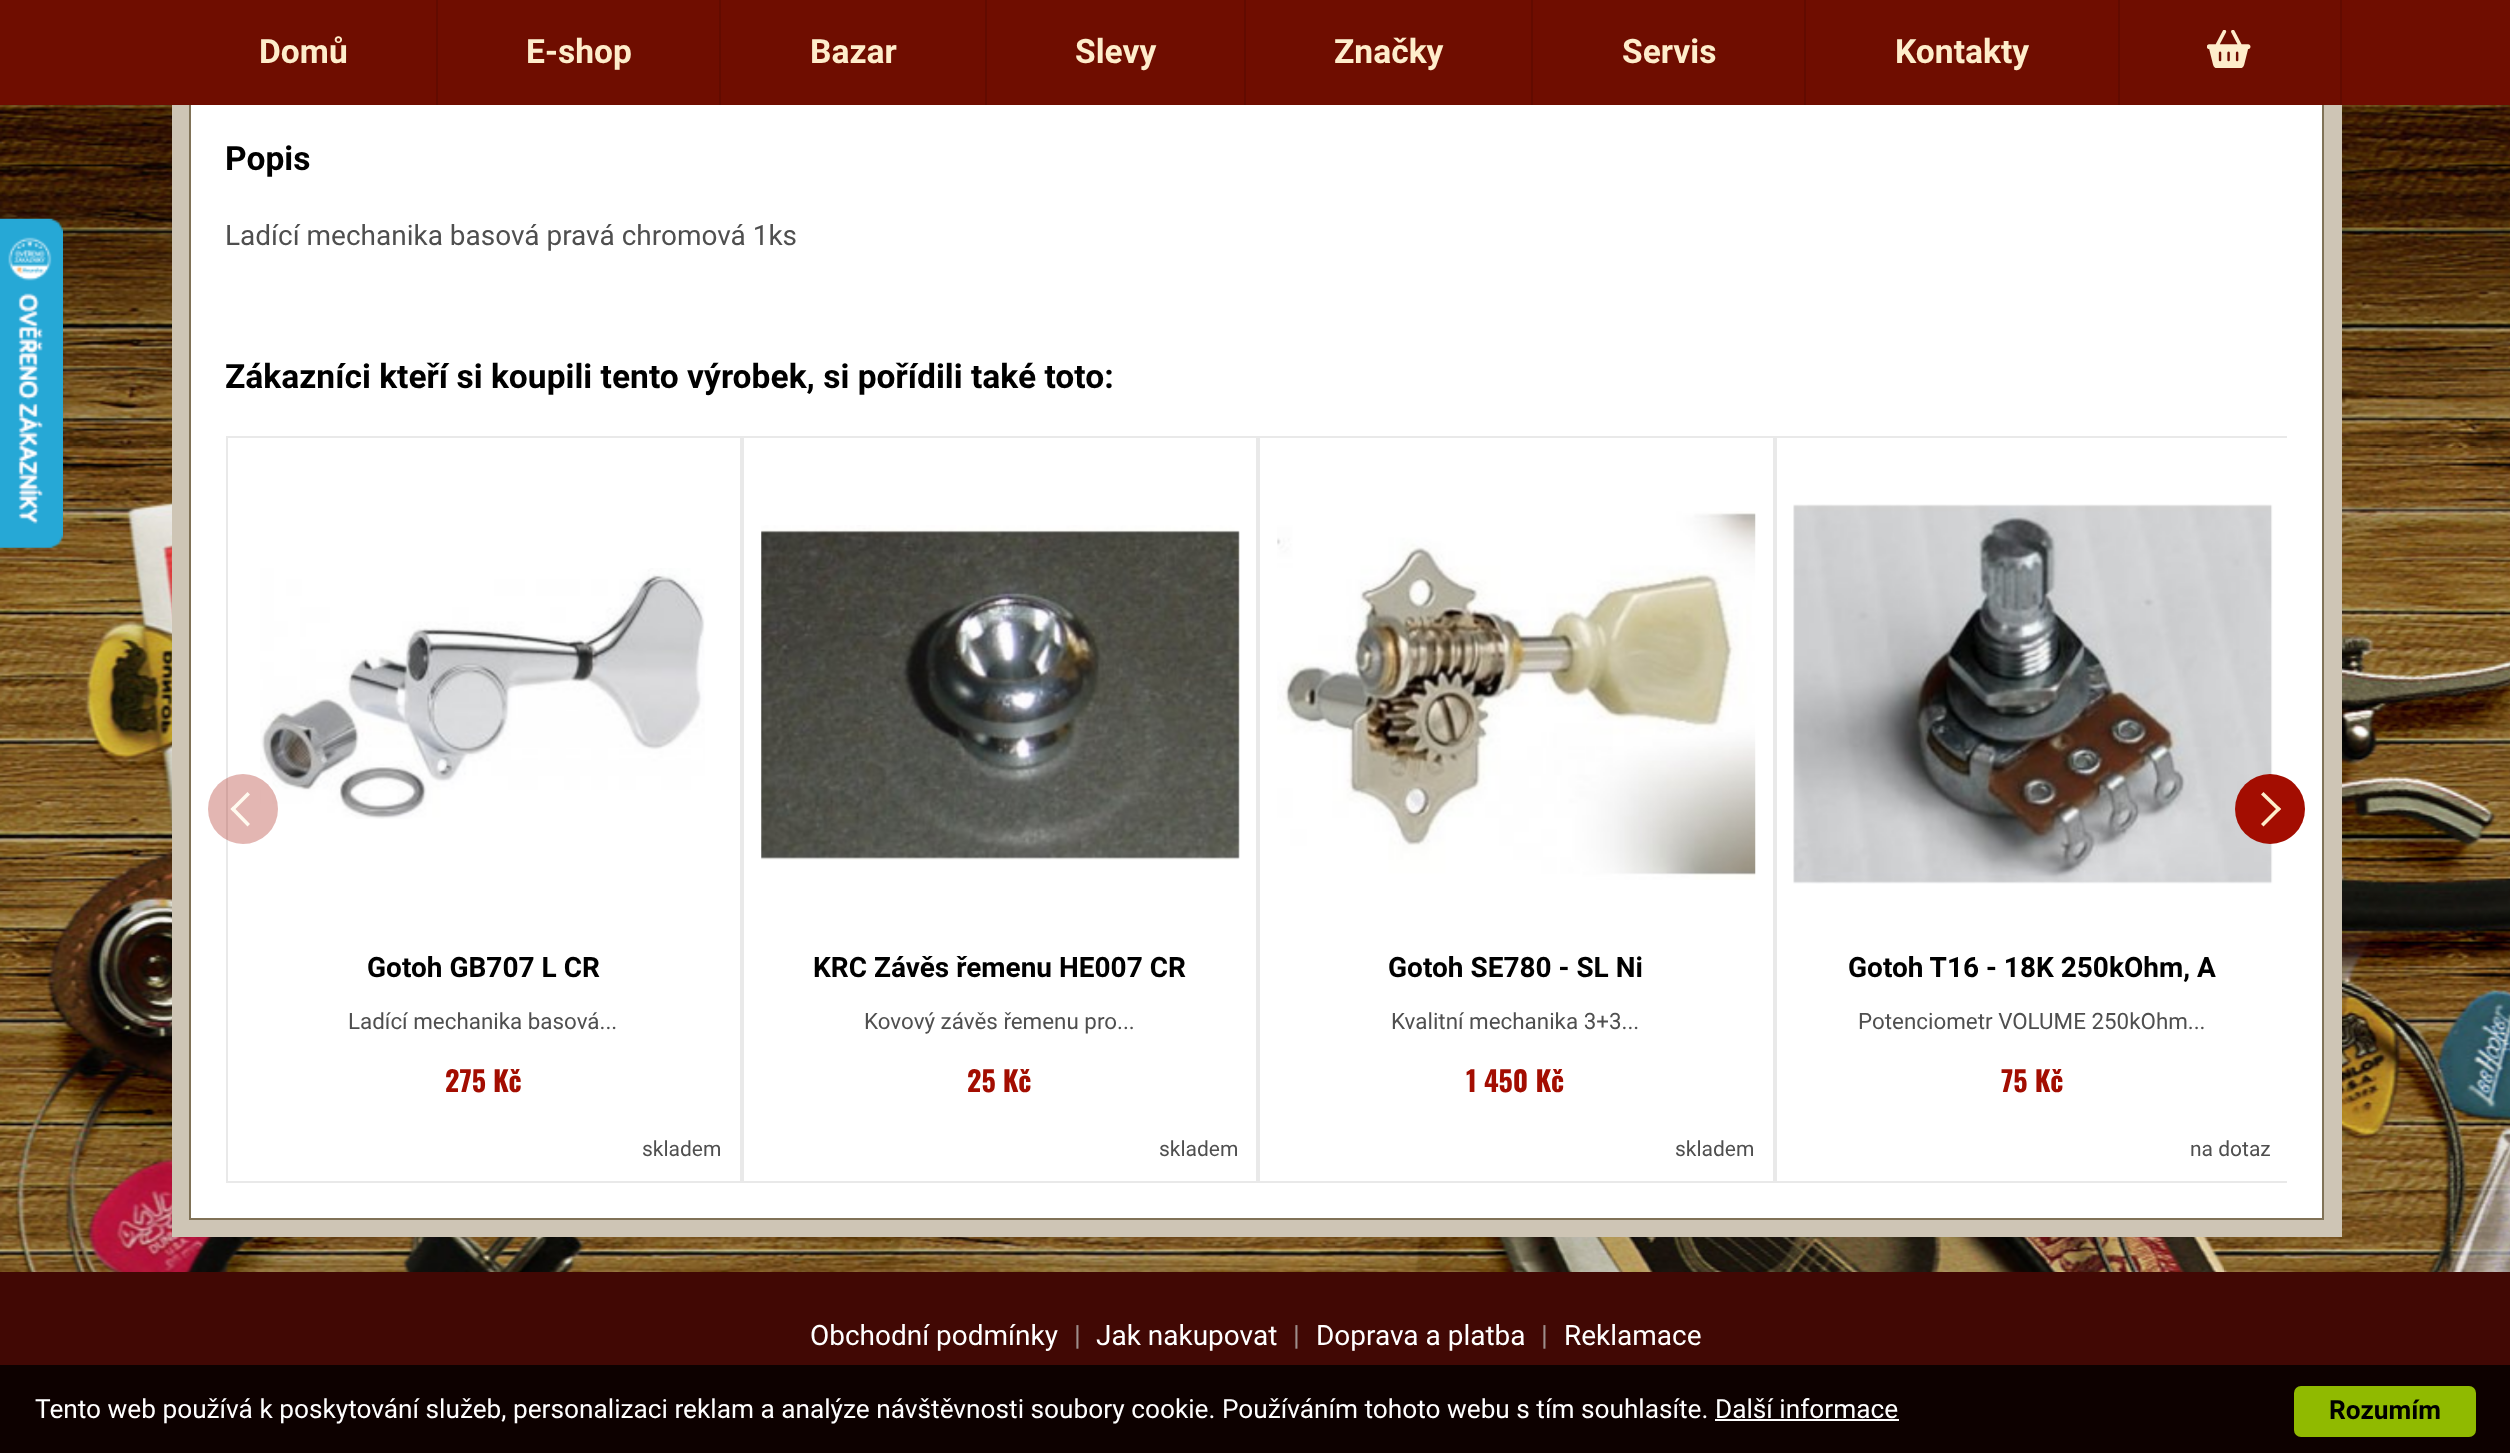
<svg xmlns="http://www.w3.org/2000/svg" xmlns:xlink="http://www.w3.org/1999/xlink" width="2510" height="1453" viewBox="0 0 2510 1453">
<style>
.cls-1{font:bold 33.6px Roboto;fill:#feedcb}
.cls-2{font:bold 33.6px Roboto;fill:#000000}
.cls-3{font:28px Roboto;fill:#4f4f4f}
.cls-4{font:bold 28px Roboto;fill:#000000}
.cls-5{font:22.4px Roboto;fill:#4f4f4f}
.cls-6{font:bold 28px Oswald;fill:#a30d01}
.cls-7{font:21px Roboto;fill:#4f4f4f}
.cls-8{font:28px Roboto;fill:#ffffff}
.cls-9{font:28px Roboto;fill:#9e8e8b}
.cls-10{font:26.25px Roboto;fill:#ffffff}
.cls-11{font:bold 26.25px Roboto;fill:#000000}
</style>
<defs>
<clipPath id="clip1"><rect x="226" y="436" width="2061" height="747"/></clipPath>
</defs>
<rect width="100%" height="100%" fill="#ffffff"/>
<image xlink:href="image0.png" x="0" y="105" width="2510" height="1167"/>
<rect fill="#cec5b5" x="172" y="105" width="2170" height="1132"/>
<rect fill="#ffffff" x="191" y="105" width="2131" height="1113"/>
<rect fill="none" stroke="#807257" stroke-width="2" x="190" y="-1" width="2133" height="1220"/>
<rect fill="#6f0d00" x="0" y="0" width="2510" height="105"/>
<rect fill="#620b00" x="436" y="0" width="2" height="105"/>
<rect fill="#620b00" x="719" y="0" width="2" height="105"/>
<rect fill="#620b00" x="985" y="0" width="2" height="105"/>
<rect fill="#620b00" x="1244" y="0" width="2" height="105"/>
<rect fill="#620b00" x="1531" y="0" width="2" height="105"/>
<rect fill="#620b00" x="1804" y="0" width="2" height="105"/>
<rect fill="#620b00" x="2118" y="0" width="2" height="105"/>
<rect fill="#620b00" x="2340" y="0" width="2" height="105"/>
<image xlink:href="image1.png" x="2207" y="30" width="44" height="38"/>
<image xlink:href="image2.png" x="0" y="218" width="63" height="330"/>
<rect fill="none" stroke="#e9e9e9" stroke-width="2" x="227" y="437" width="514" height="745"/>
<image xlink:href="image3.png" x="260" y="568" width="445" height="251"/>
<circle fill="#a30d01" fill-opacity="0.3" cx="243" cy="809" r="35"/>
<path fill="#fffaef" d="M247.5 826.5L230.5 809L233 806.5L250 824Z"/>
<path fill="#fffaef" d="M233 811.5L230.5 809L247.5 792L250 794.5Z"/>
<g clip-path="url(#clip1)">
<rect fill="none" stroke="#e9e9e9" stroke-width="2" x="1776" y="437" width="514" height="745"/>
</g>
<image xlink:href="image6.png" x="1793" y="504" width="480" height="380"/>
<circle fill="#a30d01" cx="2270" cy="809" r="35"/>
<path fill="#feedcb" d="M2263.5 792L2281 809L2278.5 811.5L2261 794.5Z"/>
<path fill="#feedcb" d="M2278.5 806.5L2281 809L2263.5 826.5L2261 824Z"/>
<rect fill="none" stroke="#e9e9e9" stroke-width="2" x="743" y="437" width="514" height="745"/>
<image xlink:href="image4.png" x="761" y="525" width="479" height="335"/>
<rect fill="none" stroke="#e9e9e9" stroke-width="2" x="1259" y="437" width="515" height="745"/>
<image xlink:href="image5.png" x="1277" y="511" width="479" height="369"/>
<rect fill="#410804" x="0" y="1272" width="2510" height="181"/>
<rect fill="#000000" fill-opacity="0.8" x="0" y="1365" width="2510" height="88"/>
<rect fill="#90ba00" x="2294" y="1386" width="182" height="51" rx="7"/>
<rect fill="#ffffff" x="1715" y="1419" width="184" height="2"/>
<text class="cls-1" x="259" y="63">Domů</text>
<text class="cls-1" x="526" y="63">E-shop</text>
<text class="cls-1" x="810" y="63">Bazar</text>
<text class="cls-1" x="1075" y="63">Slevy</text>
<text class="cls-1" x="1334" y="63">Značky</text>
<text class="cls-1" x="1622" y="63">Servis</text>
<text class="cls-1" x="1895" y="63">Kontakty</text>
<text class="cls-2" x="225" y="170">Popis</text>
<text class="cls-3" x="225" y="245">Ladící mechanika basová pravá chromová 1ks</text>
<text class="cls-2" x="225" y="388">Zákazníci kteří si koupili tento výrobek, si pořídili také toto:</text>
<text class="cls-4" x="367" y="977">Gotoh GB707 L CR</text>
<text class="cls-5" x="348" y="1029">Ladící mechanika basová...</text>
<text class="cls-6" x="445" y="1092">275 Kč</text>
<text class="cls-7" x="642" y="1156">skladem</text>
<text class="cls-4" x="813" y="977">KRC Závěs řemenu HE007 CR</text>
<text class="cls-5" x="864" y="1029">Kovový závěs řemenu pro...</text>
<text class="cls-6" x="967" y="1092">25 Kč</text>
<text class="cls-7" x="1159" y="1156">skladem</text>
<text class="cls-4" x="1388" y="977">Gotoh SE780 - SL Ni</text>
<text class="cls-5" x="1391" y="1029">Kvalitní mechanika 3+3...</text>
<text class="cls-6" x="1466" y="1092">1 450 Kč</text>
<text class="cls-7" x="1675" y="1156">skladem</text>
<text class="cls-4" x="1848" y="977">Gotoh T16 - 18K 250kOhm, A</text>
<text class="cls-5" x="1858" y="1029">Potenciometr VOLUME 250kOhm...</text>
<text class="cls-6" x="2001" y="1092">75 Kč</text>
<text class="cls-7" x="2190" y="1156">na dotaz</text>
<text class="cls-8" x="810" y="1345">Obchodní podmínky</text>
<text class="cls-9" x="1074" y="1345">|</text>
<text class="cls-8" x="1096" y="1345">Jak nakupovat</text>
<text class="cls-9" x="1293" y="1345">|</text>
<text class="cls-8" x="1316" y="1345">Doprava a platba</text>
<text class="cls-9" x="1541" y="1345">|</text>
<text class="cls-8" x="1564" y="1345">Reklamace</text>
<text class="cls-10" x="35" y="1418">Tento web používá k poskytování služeb, personalizaci reklam a analýze návštěvnosti soubory cookie. Používáním tohoto webu s tím souhlasíte. Další informace</text>
<text class="cls-11" x="2329" y="1419">Rozumím</text>
</svg>
